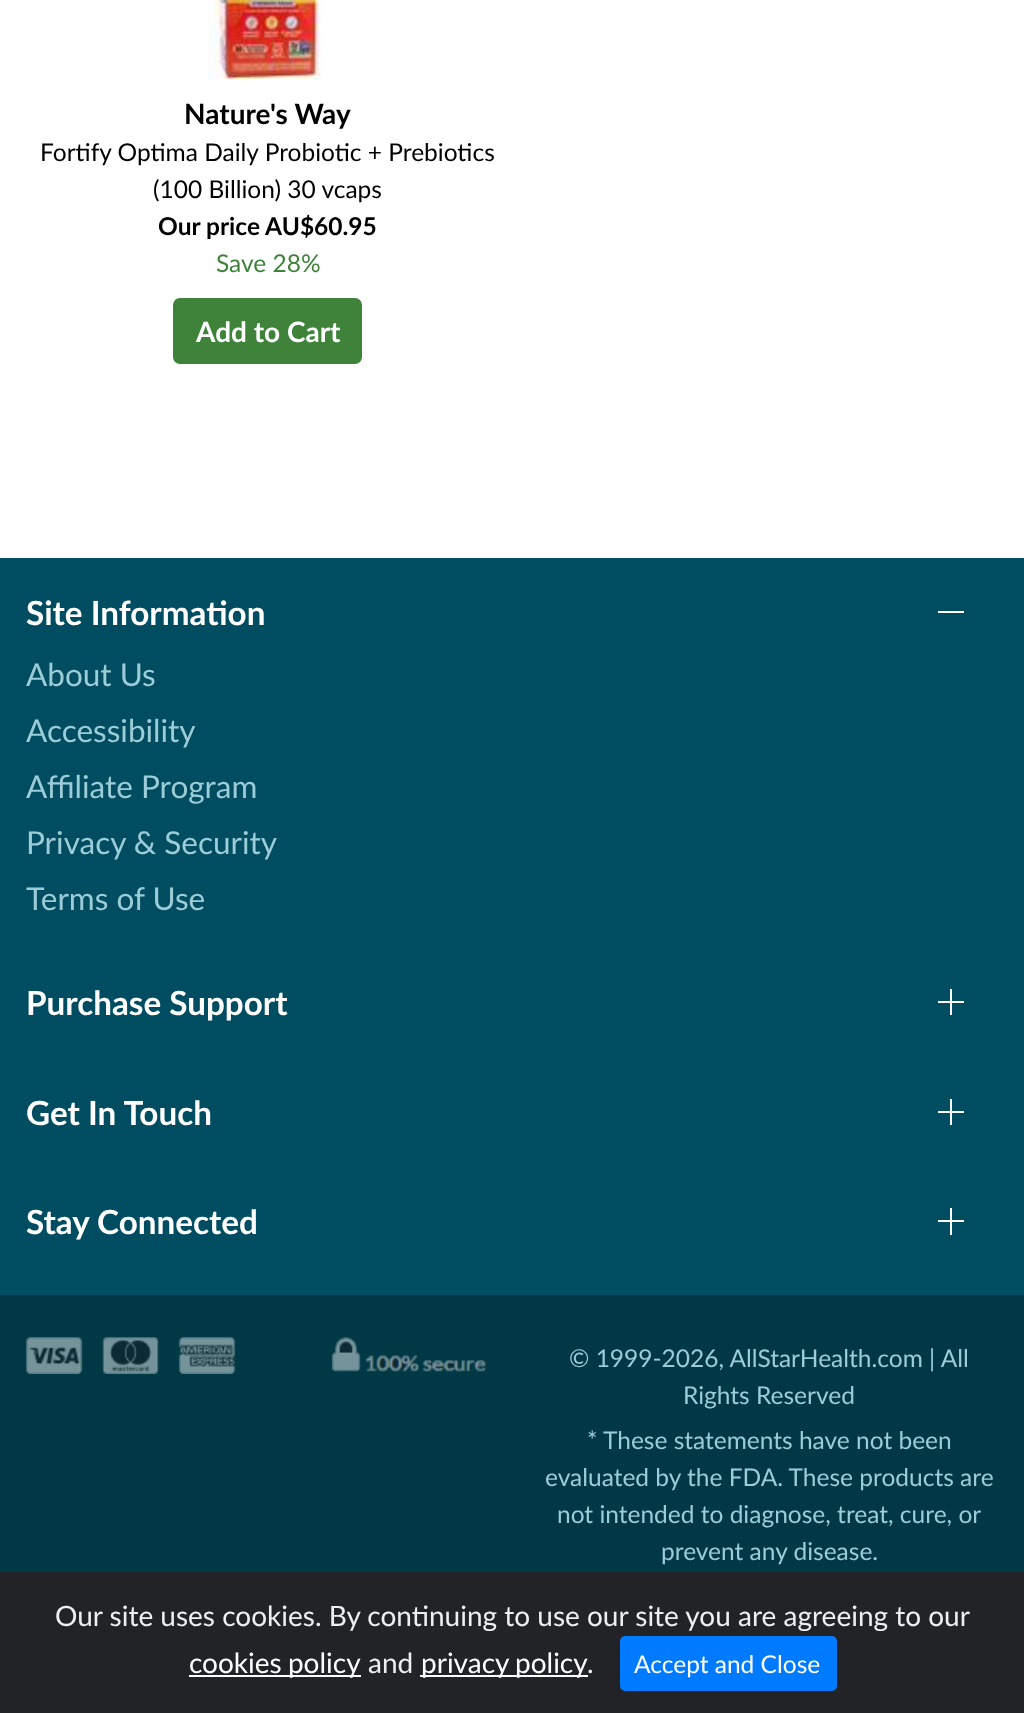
<svg xmlns="http://www.w3.org/2000/svg" xmlns:xlink="http://www.w3.org/1999/xlink" width="1024" height="1713" viewBox="0 0 1024 1713">
<style>
.cls-1{font:bold 28px Lato;fill:#000000}
.cls-2{font:24.5px Lato;fill:#000000}
.cls-3{font:bold 24.5px Lato;fill:#000000}
.cls-4{font:24.5px Lato;fill:#3f833a}
.cls-5{font:bold 28px Lato;fill:#ffffff}
.cls-6{font:bold 33.25px Lato;fill:#ffffff}
.cls-7{font:31.5px Lato;fill:#9cccd8}
.cls-8{font:24.5px Lato;fill:#9cccd8}
.cls-9{font:28px Lato;fill:#ecf0f1}
.cls-10{font:28px Lato;fill:#ffffff}
.cls-11{font:24.5px Lato;fill:#ffffff}
</style>
<rect width="100%" height="100%" fill="#ffffff"/>
<image xlink:href="image0.png" x="208" y="0" width="114" height="79"/>
<rect fill="#3f833a" x="173" y="298" width="189" height="66" rx="7"/>
<rect fill="#004d61" x="0" y="558" width="1024" height="737"/>
<rect fill="#ffffff" x="938" y="611" width="26" height="2"/>
<rect fill="#ffffff" x="938" y="1001" width="26" height="2"/>
<rect fill="#ffffff" x="950" y="989" width="2" height="26"/>
<rect fill="#ffffff" x="938" y="1111" width="26" height="2"/>
<rect fill="#ffffff" x="950" y="1099" width="2" height="26"/>
<rect fill="#ffffff" x="938" y="1220" width="26" height="2"/>
<rect fill="#ffffff" x="950" y="1208" width="2" height="27"/>
<rect fill="#003846" x="0" y="1295" width="1024" height="277"/>
<image xlink:href="image1.png" x="26" y="1337" width="461" height="37"/>
<rect fill="#212327" x="0" y="1572" width="1024" height="141"/>
<rect fill="#ffffff" x="189" y="1675" width="172" height="2"/>
<rect fill="#ffffff" x="420" y="1675" width="168" height="2"/>
<rect fill="#007bff" stroke="#007bff" stroke-width="2" x="621" y="1637" width="215" height="53" rx="4"/>
<text class="cls-1" x="184" y="124">Nature's Way</text>
<text class="cls-2" x="40" y="161">Fortify Optima Daily Probiotic + Prebiotics</text>
<text class="cls-2" x="153" y="198">(100 Billion) 30 vcaps</text>
<text class="cls-3" x="158" y="235">Our price AU$60.95</text>
<text class="cls-4" x="216" y="272">Save 28%</text>
<text class="cls-5" x="196" y="342">Add to Cart</text>
<text class="cls-6" x="26" y="625">Site Information</text>
<text class="cls-7"><tspan x="26" y="686">About Us</tspan><tspan x="26" y="742">Accessibility</tspan><tspan x="26" y="798">Affiliate Program</tspan><tspan x="26" y="854">Privacy &amp; Security</tspan><tspan x="26" y="910">Terms of Use</tspan></text>
<text class="cls-6" x="26" y="1015">Purchase Support</text>
<text class="cls-6" x="26" y="1125">Get In Touch</text>
<text class="cls-6" x="26" y="1234">Stay Connected</text>
<text class="cls-8" x="569" y="1367">© 1999-2026, AllStarHealth.com | All</text>
<text class="cls-8" x="683" y="1404">Rights Reserved</text>
<text class="cls-8" x="587" y="1449">* These statements have not been</text>
<text class="cls-8" x="545" y="1486">evaluated by the FDA. These products are</text>
<text class="cls-8" x="557" y="1523">not intended to diagnose, treat, cure, or</text>
<text class="cls-8" x="661" y="1560">prevent any disease.</text>
<text class="cls-9" x="55" y="1626">Our site uses cookies. By continuing to use our site you are agreeing to our</text>
<text class="cls-10" x="189" y="1673" word-spacing="-1">cookies policy</text>
<text class="cls-9" x="368" y="1673">and</text>
<text class="cls-10" x="421" y="1673" word-spacing="-1">privacy policy</text>
<text class="cls-9" x="587" y="1673">.</text>
<text class="cls-11" x="634" y="1673">Accept and Close</text>
</svg>
